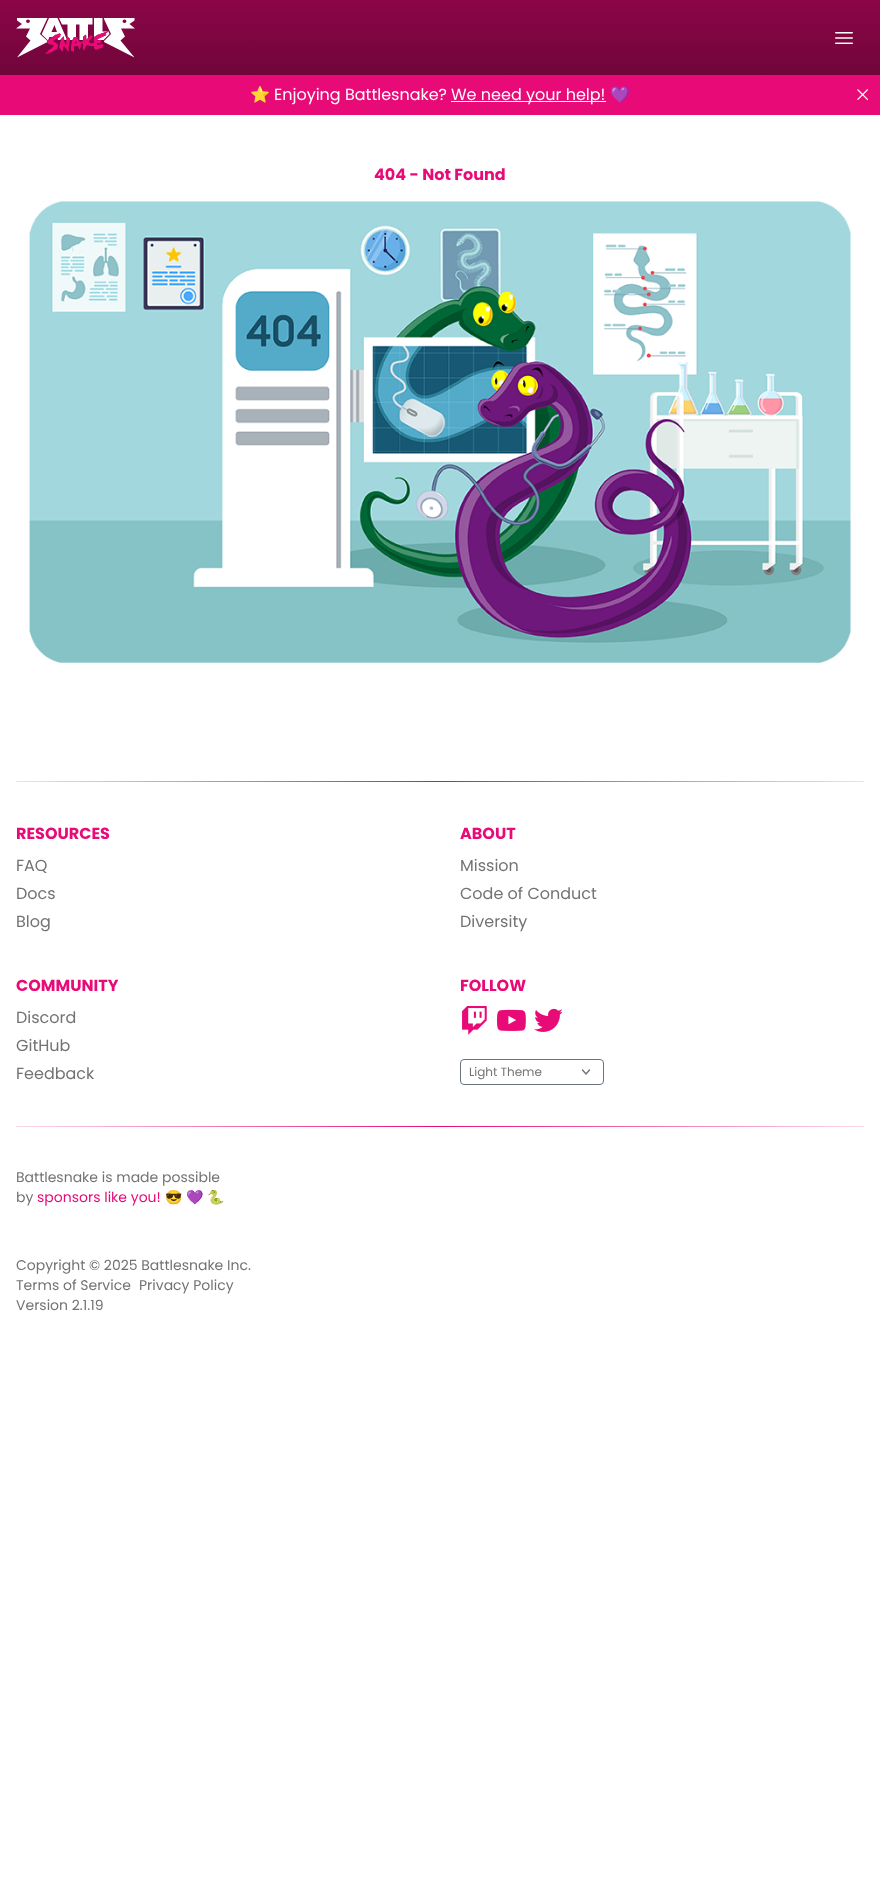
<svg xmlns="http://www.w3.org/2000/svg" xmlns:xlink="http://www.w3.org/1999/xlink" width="880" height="1885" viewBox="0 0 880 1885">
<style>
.cls-1{font:16px Noto Color Emoji;fill:#ffffff}
.cls-2{font:16px Poppins;fill:#ffffff}
.cls-3{font:bold 16px Poppins;fill:#e70a77}
.cls-4{font:16px Poppins;fill:#737373}
.cls-5{font:12px Poppins;fill:#737373}
.cls-6{font:14px Poppins;fill:#737373}
.cls-7{font:14px Poppins;fill:#e70a77}
.cls-8{font:14px Noto Color Emoji;fill:#737373}
</style>
<defs>
<linearGradient id="g1" gradientUnits="userSpaceOnUse" x1="440" y1="0" x2="440" y2="75"><stop offset="0" stop-color="#8b0647"/><stop offset="1" stop-color="#71053a"/></linearGradient>
<radialGradient id="g2" gradientUnits="userSpaceOnUse" cx="440" cy="782" r="500"><stop offset="0" stop-color="#e70a77"/><stop offset="1" stop-color="#ffffff"/></radialGradient>
<radialGradient id="g3" gradientUnits="userSpaceOnUse" cx="440" cy="1127" r="500"><stop offset="0" stop-color="#e70a77"/><stop offset="1" stop-color="#ffffff"/></radialGradient>
</defs>
<rect width="100%" height="100%" fill="#ffffff"/>
<rect fill="url(#g1)" x="0" y="0" width="880" height="75"/>
<path fill="#ffffff" fill-rule="evenodd" d="M16 28.5L22 24L17 20.5V18H47.5L40 34L47.5 41L47 41.5L47.5 42L17 57.5L30.5 40.5L26 36.5L30 28.5ZM28 19.5C30.5 19.5 30.5 23 28 23C25.5 23 25.5 19.5 28 19.5Z"/>
<path fill="#ffffff" fill-rule="evenodd" d="M104 18H134.5V20.5L129.5 24L135 28.5H121L125 36.5L120.5 40.5L134.5 57.5L104 42V41L111 34L104 19ZM124.5 19.5C127 19.5 127 23 124.5 23C122 23 122 19.5 124.5 19.5Z"/>
<path fill="#ffffff" d="M94 18H102.5V31.5H108.5L109.5 34L103.5 40H97.5V39L104.5 36L106.5 35C106 35 105.5 35 106 35C106 35 106.5 34.5 106 34.5C106 34.5 105 35 105 34.5L106 34L105 33.5C105.5 34 106 33.5 106 33.5L105.5 33C106.5 32.5 107.5 32.5 108 31.5L106 32C105.5 32 99.5 34 99.5 34.5C99 34.5 96 35 97 35.5L94.5 36.5C94 37.5 94 39 94 40ZM59 18H92.5V24.5H88V38L86.5 40C86.5 39 86.5 35 86 35C86 34 84.5 35.5 84 36C83 36 83 39 83 40H79.5V24.5H76V37L75.5 37.5L74 37L72.5 40H70C70 39.5 69.5 37.5 69 38L67.5 36.5V24.5H62Z"/>
<path fill="#ffffff" fill-rule="evenodd" d="M42 33.5L49 18H57.5L66.5 38.5V40H64.5C64 39.5 64 36.5 63.5 36.5L60.5 40H58L57.5 38.5L60.5 36.5L60 36L60.5 35C60.5 35.5 61 35 60.5 34.5C60.5 34.5 61 34 60.5 34V34.5H60L59.5 33.5L60 33L55 35.5L57.5 33.5L52.5 37H49.5L48 40.5L42 34.5ZM54.5 25L57 32H51.5Z"/>
<path fill="#e70a77" fill-rule="evenodd" d="M105 34L108 32H106L97 35C97 35 94 37 95 37C93 38 94 41 94 43C93 43 91 44 90 43C86 40 96 38 91 35C91 35 90 36 90 36L86 40V35C86 34 84 36 84 36C83 36 83 41 83 42V41C81 42 80 43 79 41L77 37H75H74L72 41L71 47V50V49C71 48 71 49 71 49C71 50 71 51 72 51C74 52 74 52 74 50V46C75 47 76 46 78 46C79 47 79 51 80 49L81 46V45C80 44 81 44 83 43V50H84C85 49 84 51 84 50L87 45C89 46 92 46 94 46C94 51 96 50 101 48C102 48 104 47 102 48C103 47 103 47 103 45C104 43 99 45 98 45H97V43C99 43 103 43 101 41C101 39 99 41 97 40L98 39L106 35C105 35 107 35 106 34L105 35C105 34 106 34 105 34ZM52 52L57 49C61 43 53 42 53 41L60 37V36V35C61 35 61 35 61 35V34H60L59 33H60L55 36L57 34C59 33 55 35 55 35L47 41L48 44C56 45 55 46 49 50L47 51H49L44 54C46 53 47 52 45 54L47 53V54ZM64 41V36L60 40H61L59 47L61 50C63 54 63 49 63 47L64 46L67 50C70 55 68 48 69 46L70 39L67 36L66 45ZM76 41L77 43C73 44 75 43 76 41Z"/>
<image xlink:href="image0.png" x="835" y="32" width="18" height="12"/>
<rect fill="#e70a77" x="0" y="75" width="880" height="40"/>
<rect fill="#ffffff" x="451" y="101" width="155" height="1"/>
<image xlink:href="image1.png" x="857" y="89" width="11" height="11"/>
<image xlink:href="image2.png" x="29" y="201" width="822" height="462"/>
<rect fill="url(#g2)" x="16" y="781" width="848" height="1"/>
<image xlink:href="image3.png" x="462" y="1006" width="25" height="29"/>
<image xlink:href="image4.png" x="497" y="1009" width="29" height="22"/>
<image xlink:href="image5.png" x="534" y="1008" width="28" height="24"/>
<path fill="none" stroke="#6b7280" stroke-width="1.4" stroke-linecap="round" stroke-linejoin="round" d="M582.5 1070L586 1074L589.5 1070"/>
<rect fill="none" stroke="#6b7280" x="460.5" y="1059.5" width="143" height="25" rx="3.5"/>
<rect fill="url(#g3)" x="16" y="1126" width="848" height="1"/>
<text class="cls-1" x="250" y="100">⭐️</text>
<text class="cls-2" x="274" y="100">Enjoying Battlesnake?</text>
<text class="cls-2" x="451" y="100">We need your help!</text>
<text class="cls-1" x="610" y="100">💜</text>
<text class="cls-3" x="374" y="180">404 - Not Found</text>
<text class="cls-3" x="16" y="839">RESOURCES</text>
<text class="cls-4"><tspan x="16" y="871">FAQ</tspan><tspan x="16" y="899">Docs</tspan><tspan x="16" y="927">Blog</tspan></text>
<text class="cls-3" x="460" y="839">ABOUT</text>
<text class="cls-4"><tspan x="460" y="871">Mission</tspan><tspan x="460" y="899">Code of Conduct</tspan><tspan x="460" y="927">Diversity</tspan></text>
<text class="cls-3" x="16" y="991">COMMUNITY</text>
<text class="cls-4"><tspan x="16" y="1023">Discord</tspan><tspan x="16" y="1051">GitHub</tspan><tspan x="16" y="1079">Feedback</tspan></text>
<text class="cls-3" x="460" y="991">FOLLOW</text>
<text class="cls-5" x="469" y="1076">Light Theme</text>
<text class="cls-6"><tspan x="16" y="1182">Battlesnake is made possible</tspan><tspan x="16" y="1202">by</tspan></text>
<text class="cls-7" x="37" y="1202">sponsors like you!</text>
<text class="cls-8" x="165" y="1202">😎</text>
<text class="cls-8" x="186" y="1202">💜</text>
<text class="cls-8" x="207" y="1202">🐍</text>
<text class="cls-6"><tspan x="16" y="1270">Copyright © 2025 Battlesnake Inc.</tspan><tspan x="16" y="1290">Terms of Service</tspan></text>
<text class="cls-6" x="139" y="1290">Privacy Policy</text>
<text class="cls-6" x="16" y="1310">Version 2.1.19</text>
</svg>
